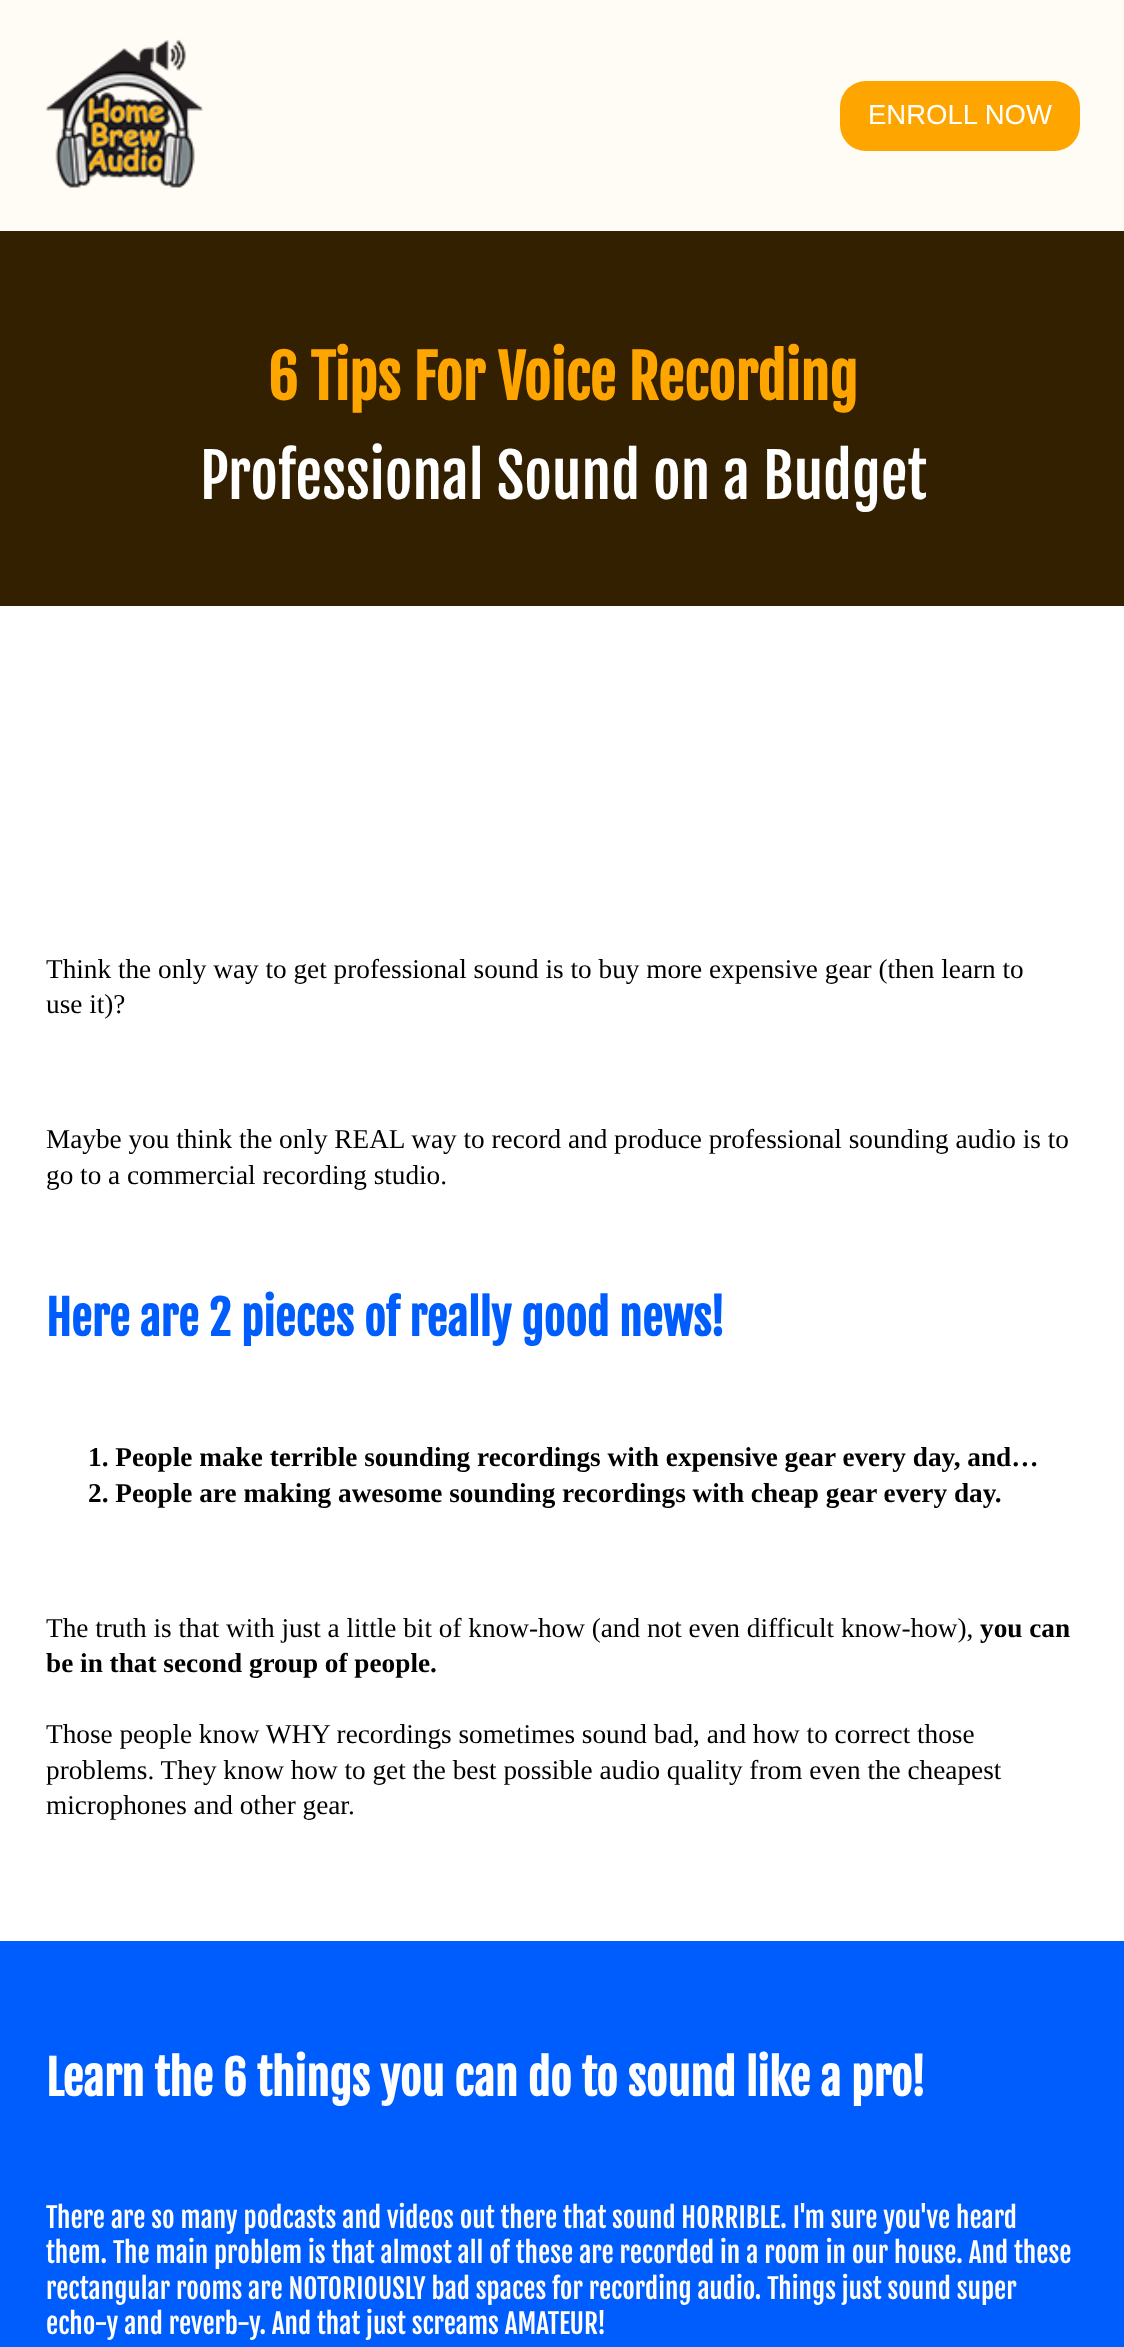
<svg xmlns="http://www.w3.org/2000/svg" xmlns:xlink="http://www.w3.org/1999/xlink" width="1124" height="2347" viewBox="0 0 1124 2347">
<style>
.cls-1{font:27.5px Liberation Sans;fill:#ffffff}
.cls-2{font:bold 58.75px Fjalla One;fill:#ffa500}
.cls-3{font:60px Fjalla One;fill:#ffffff}
.cls-4{font:27.25px Liberation Serif;fill:#000000}
.cls-5{font:bold 46.5px Fjalla One;fill:#005dfd}
.cls-6{font:bold 27.25px Liberation Serif;fill:#000000}
.cls-7{font:bold 46.5px Fjalla One;fill:#ffffff}
.cls-8{font:27.25px Fjalla One;fill:#ffffff}
</style>
<rect width="100%" height="100%" fill="#ffffff"/>
<rect fill="#fffbf5" x="0" y="0" width="1124" height="231"/>
<image xlink:href="image0.png" x="45" y="39" width="158" height="149"/>
<rect fill="#ffa500" x="840" y="81" width="240" height="70" rx="26"/>
<rect fill="#332000" x="0" y="231" width="1124" height="375"/>
<rect fill="#005dfd" x="0" y="1941" width="1124" height="406"/>
<text class="cls-1" x="868" y="124">ENROLL NOW</text>
<text class="cls-2" x="268" y="400">6 Tips For Voice Recording</text>
<text class="cls-3" x="200" y="499">Professional Sound on a Budget</text>
<text class="cls-4"><tspan x="46" y="978">Think the only way to get professional sound is to buy more expensive gear (then learn to</tspan><tspan x="46" y="1013">use it)?</tspan></text>
<text class="cls-4"><tspan x="46" y="1148">Maybe you think the only REAL way to record and produce professional sounding audio is to</tspan><tspan x="46" y="1184">go to a commercial recording studio.</tspan></text>
<text class="cls-5" x="46" y="1336">Here are 2 pieces of really good news!</text>
<text class="cls-6"><tspan x="88" y="1466">1. People make terrible sounding recordings with expensive gear every day, and…</tspan><tspan x="88" y="1502">2. People are making awesome sounding recordings with cheap gear every day.</tspan></text>
<text class="cls-4" x="46" y="1637">The truth is that with just a little bit of know-how (and not even difficult know-how),</text>
<text class="cls-6" x="980" y="1637">you can</text>
<text class="cls-6" x="46" y="1672">be in that second group of people.</text>
<text class="cls-4"><tspan x="46" y="1743">Those people know WHY recordings sometimes sound bad, and how to correct those</tspan><tspan x="46" y="1779">problems. They know how to get the best possible audio quality from even the cheapest</tspan><tspan x="46" y="1814">microphones and other gear.</tspan></text>
<text class="cls-7" x="46" y="2096">Learn the 6 things you can do to sound like a pro!</text>
<text class="cls-8"><tspan x="46" y="2228">There are so many podcasts and videos out there that sound HORRIBLE. I'm sure you've heard</tspan><tspan x="46" y="2263">them. The main problem is that almost all of these are recorded in a room in our house. And these</tspan><tspan x="46" y="2299">rectangular rooms are NOTORIOUSLY bad spaces for recording audio. Things just sound super</tspan><tspan x="46" y="2334">echo-y and reverb-y. And that just screams AMATEUR!</tspan></text>
</svg>
